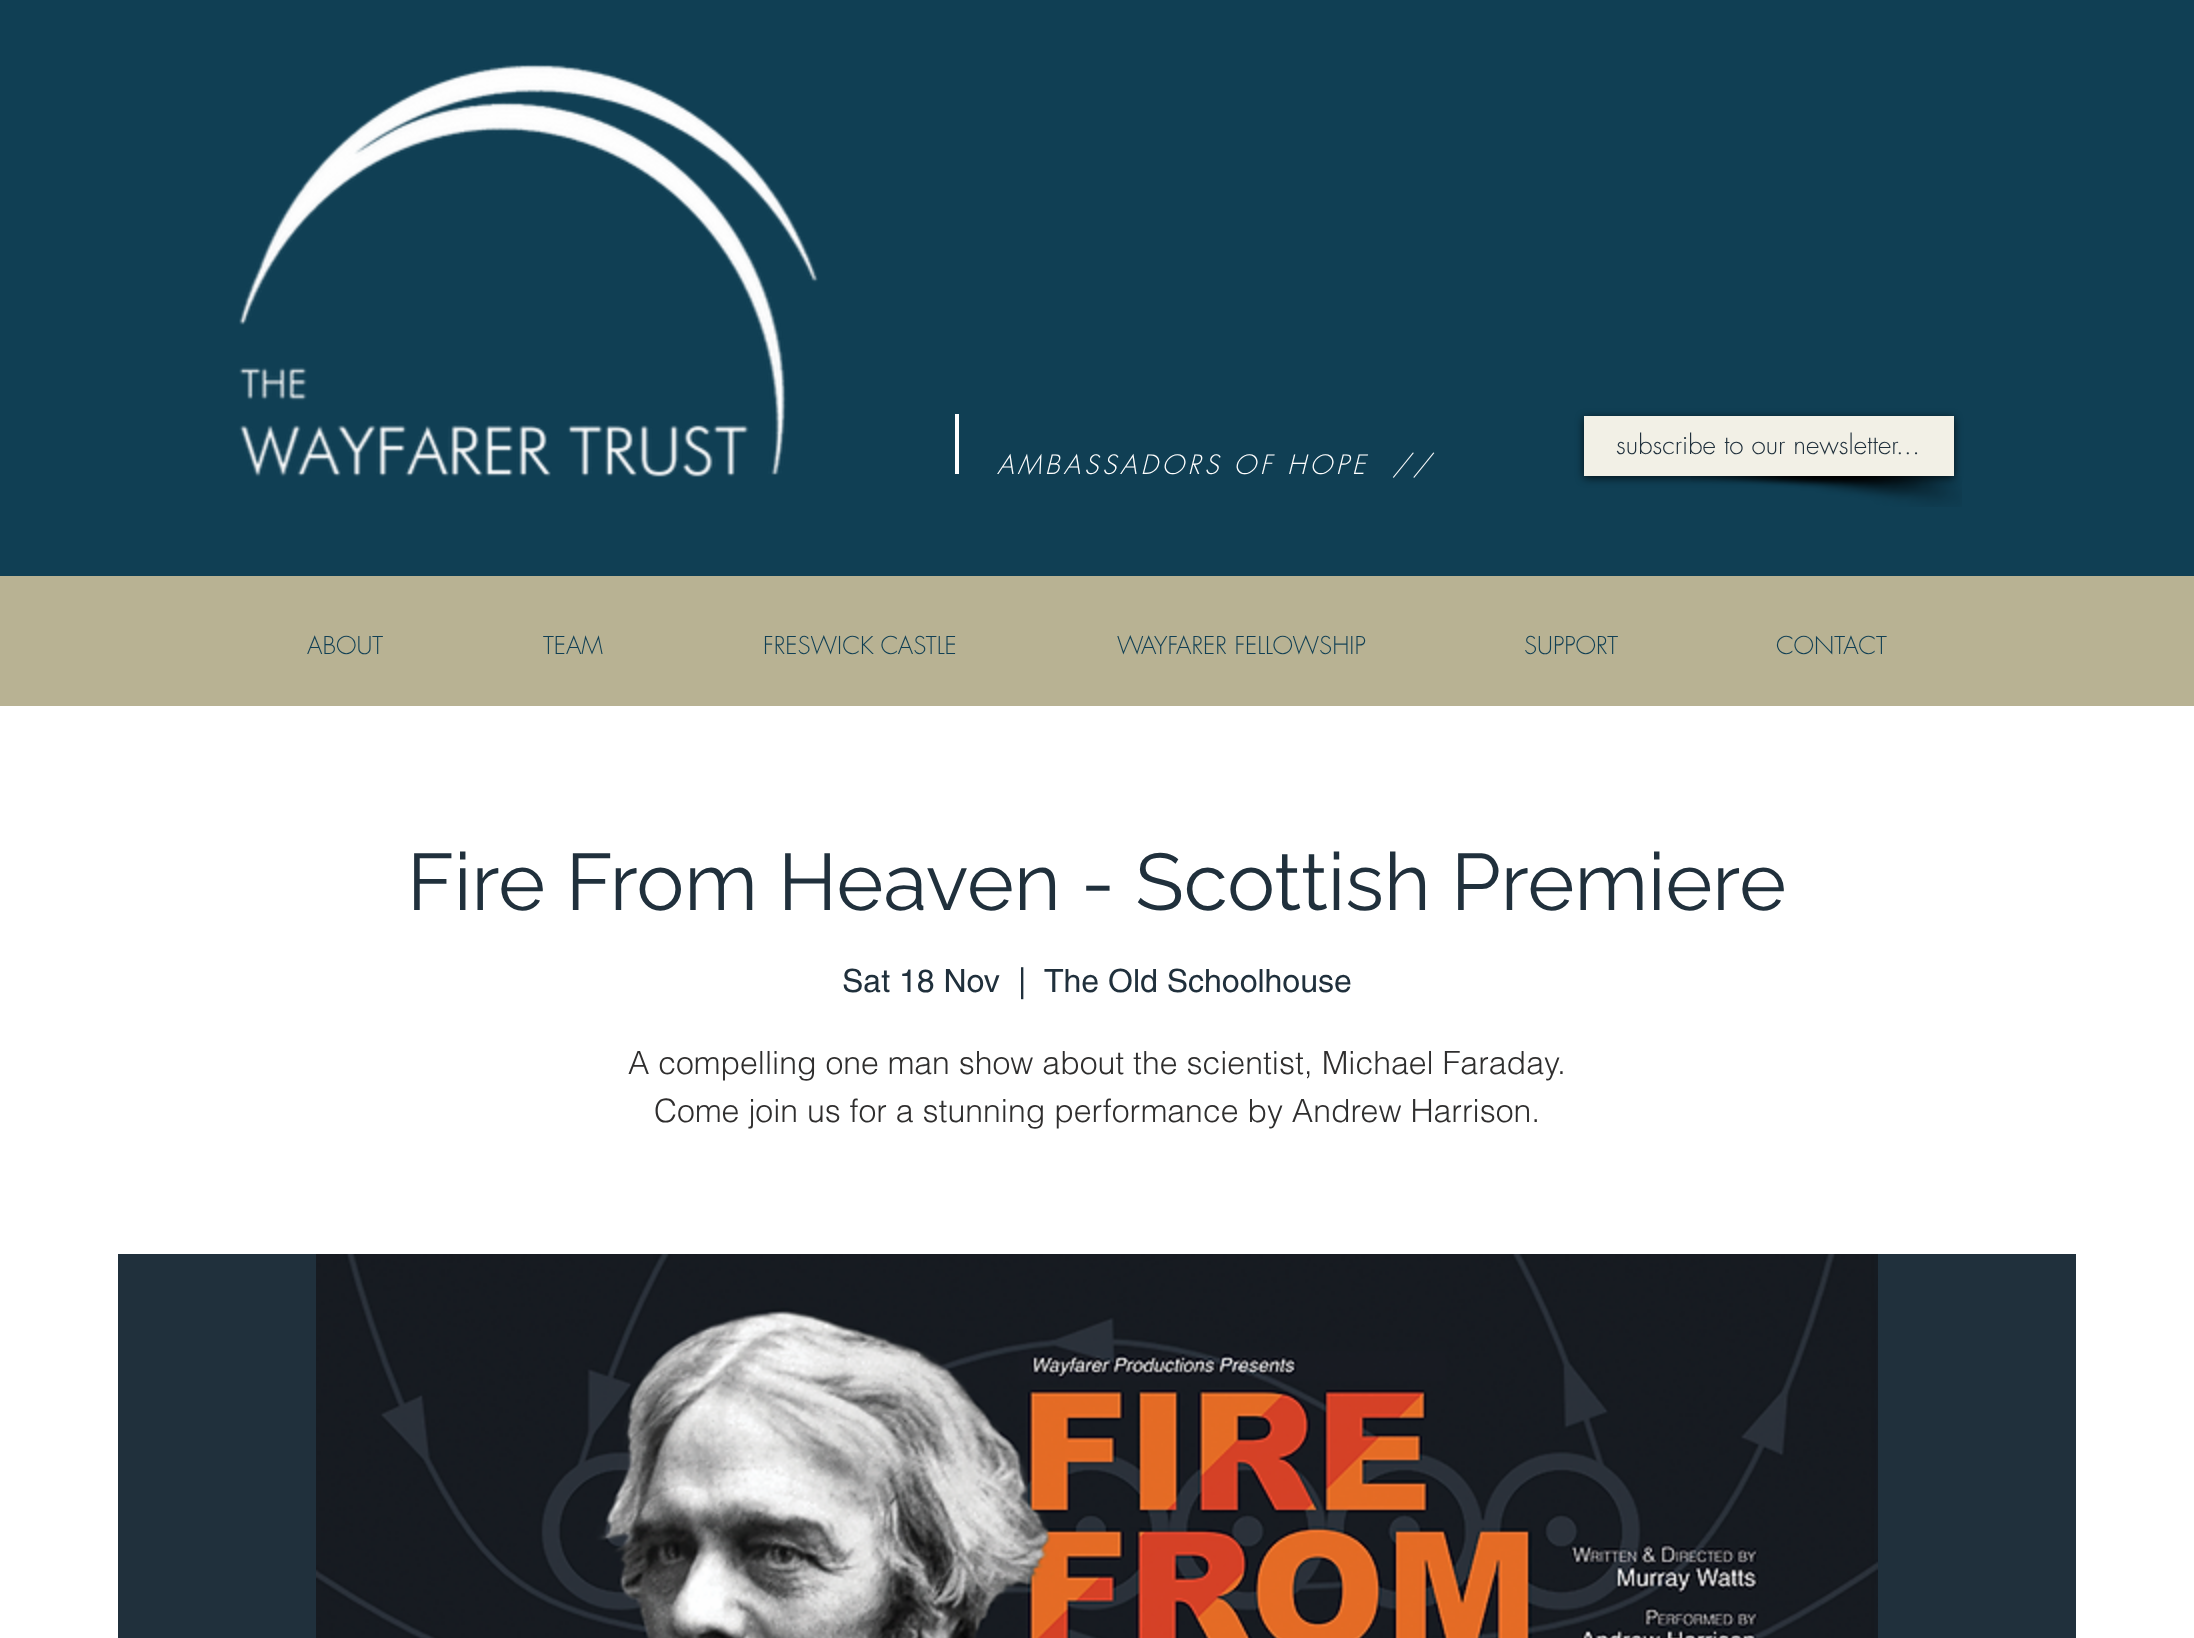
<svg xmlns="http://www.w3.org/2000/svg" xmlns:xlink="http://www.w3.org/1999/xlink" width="2194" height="1638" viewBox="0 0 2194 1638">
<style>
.cls-1{font:300 26px futura;fill:#20303c}
.cls-2{font:italic 300 26px futura;letter-spacing:3.9px;fill:#ffffff}
.cls-3{font:300 24px futura;fill:#103f54}
.cls-4{font:80px Raleway;fill:#20303c}
.cls-5{font:32px helvetica;fill:#20303c}
.cls-6{font:300 32px helvetica;fill:#2f2e2e}
</style>
<rect width="100%" height="100%" fill="#ffffff"/>
<rect fill="#103f54" x="0" y="0" width="2194" height="576"/>
<image xlink:href="image0.png" x="239" y="64" width="579" height="413"/>
<rect fill="#ffffff" x="955" y="414" width="4" height="60"/>
<image xlink:href="image1.png" x="1691" y="476" width="271" height="31"/>
<rect fill="#000000" fill-opacity="0.71" filter="blur(4px)" x="1584" y="418" width="370" height="60"/>
<rect fill="#f2f0e6" x="1584" y="416" width="370" height="60"/>
<rect fill="#b8b293" x="0" y="576" width="2194" height="130"/>
<rect fill="#20303c" x="118" y="1254" width="1958" height="384"/>
<image xlink:href="image2.png" x="316" y="1254" width="1562" height="384"/>
<text class="cls-1" x="1616" y="454">subscribe to our newsletter...</text>
<text class="cls-2" xml:space="preserve" x="997" y="474">AMBASSADORS OF HOPE  //</text>
<text class="cls-3" x="307" y="654">ABOUT</text>
<text class="cls-3" x="543" y="654">TEAM</text>
<text class="cls-3" x="763" y="654">FRESWICK CASTLE</text>
<text class="cls-3" x="1117" y="654">WAYFARER FELLOWSHIP</text>
<text class="cls-3" x="1524" y="654">SUPPORT</text>
<text class="cls-3" x="1776" y="654">CONTACT</text>
<text class="cls-4" x="407" y="910">Fire From Heaven - Scottish Premiere</text>
<text class="cls-5" x="842" y="992">Sat 18 Nov</text>
<text class="cls-5" x="1018" y="992">|</text>
<text class="cls-5" x="1044" y="992">The Old Schoolhouse</text>
<text class="cls-6" x="628" y="1074">A compelling one man show about the scientist, Michael Faraday.</text>
<text class="cls-6" x="654" y="1122">Come join us for a stunning performance by Andrew Harrison.</text>
</svg>
